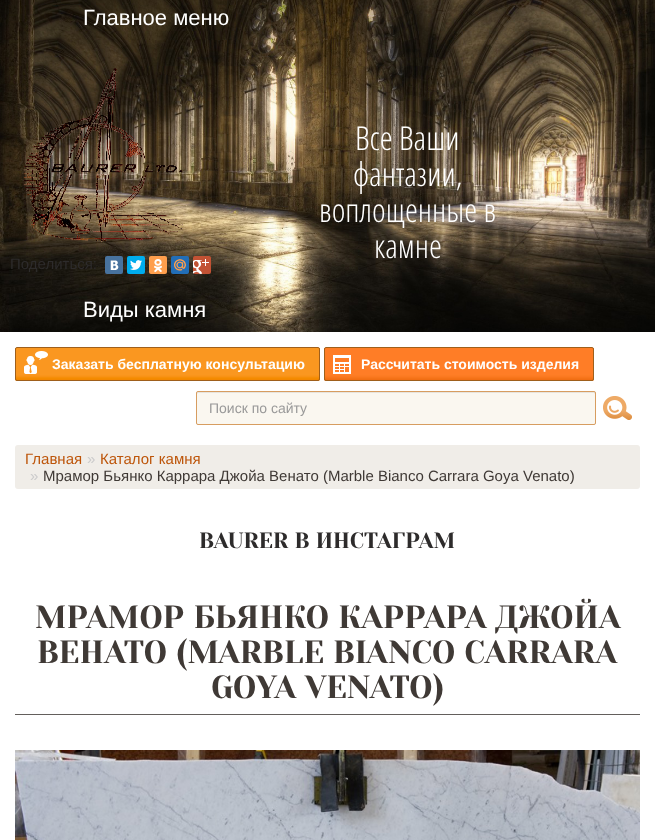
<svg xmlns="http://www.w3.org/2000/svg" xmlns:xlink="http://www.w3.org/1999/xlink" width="655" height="840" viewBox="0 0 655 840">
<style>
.cls-1{font:22px Liberation Sans;fill:#ffffff}
.cls-2{font:300 33px Open Sans Condensed;fill:#ffffff}
.cls-3{font:15px Liberation Sans;fill:#2d2b2b}
.cls-4{font:bold 14px Liberation Sans;fill:#ffffff}
.cls-5{font:14px Liberation Sans;fill:#999999}
.cls-6{font:15px Liberation Sans;fill:#bd550a}
.cls-7{font:15px Liberation Sans;fill:#cccccc}
.cls-8{font:15px Liberation Sans;fill:#3f3935}
.cls-9{font:22px Yeseva One;fill:#2d2b2b}
.cls-10{font:32px Yeseva One;fill:#3f3935}
</style>
<rect width="100%" height="100%" fill="#ffffff"/>
<image xlink:href="image0.png" x="0" y="0" width="655" height="332"/>
<rect fill="#48729e" x="105" y="256" width="18" height="18" rx="2"/>
<image xlink:href="image1.png" x="110" y="260" width="9" height="10"/>
<rect fill="#00aced" x="127" y="256" width="18" height="18" rx="2"/>
<image xlink:href="image2.png" x="130" y="260" width="12" height="10"/>
<rect fill="#ff9f4d" x="149" y="256" width="18" height="18" rx="2"/>
<image xlink:href="image3.png" x="154" y="259" width="8" height="13"/>
<rect fill="#226eb7" x="171" y="256" width="18" height="18" rx="2"/>
<image xlink:href="image4.png" x="174" y="259" width="12" height="12"/>
<rect fill="#c25234" x="193" y="256" width="18" height="18" rx="2"/>
<image xlink:href="image5.png" x="193" y="259" width="16" height="15"/>
<image xlink:href="image6.png" x="22" y="68" width="161" height="175"/>
<image xlink:href="image7.png" x="15" y="348" width="305" height="33"/>
<rect fill="none" stroke="#9f5f1b" x="15.5" y="347.5" width="304" height="33" rx="1.5"/>
<image xlink:href="image8.png" x="24" y="351" width="24" height="23"/>
<image xlink:href="image9.png" x="324" y="348" width="270" height="33"/>
<rect fill="none" stroke="#9f5f1b" x="324.5" y="347.5" width="269" height="33" rx="1.5"/>
<image xlink:href="image10.png" x="333" y="355" width="18" height="19"/>
<rect fill="#faf7f0" x="196" y="391" width="400" height="34" rx="2"/>
<path fill="#e7e4de" d="M198 393H594L595 394V392H396H198L197 393V394Z"/>
<rect fill="none" stroke="#d79d60" x="196.5" y="391.5" width="399" height="33" rx="1.5"/>
<image xlink:href="image11.png" x="603" y="396" width="29" height="24"/>
<rect fill="#f0ede8" x="15" y="445" width="625" height="44" rx="3"/>
<rect fill="#635f5c" x="15" y="714" width="625" height="1"/>
<image xlink:href="image12.png" x="15" y="750" width="625" height="90"/>
<text class="cls-1" x="83" y="25">Главное меню</text>
<text class="cls-2" x="355" y="150">Все Ваши</text>
<text class="cls-2" x="353" y="186">фантазии,</text>
<text class="cls-2" x="319" y="222">воплощенные в</text>
<text class="cls-2" x="374" y="258">камне</text>
<text class="cls-3" x="10" y="269">Поделиться:</text>
<text class="cls-1" x="83" y="317">Виды камня</text>
<text class="cls-4" x="52" y="369">Заказать бесплатную консультацию</text>
<text class="cls-4" x="361" y="369">Рассчитать стоимость изделия</text>
<text class="cls-5" x="209" y="413">Поиск по сайту</text>
<text class="cls-6" x="25" y="464">Главная</text>
<text class="cls-7" x="87" y="464">»</text>
<text class="cls-6" x="100" y="464">Каталог камня</text>
<text class="cls-7" x="30" y="481">»</text>
<text class="cls-8" x="43" y="481">Мрамор Бьянко Каррара Джойа Венато (Marble Bianco Carrara Goya Venato)</text>
<text class="cls-9" x="199" y="548">BAURER В ИНСТАГРАМ</text>
<text class="cls-10" x="35" y="628">МРАМОР БЬЯНКО КАРРАРА ДЖОЙА</text>
<text class="cls-10" x="37" y="663">ВЕНАТО (MARBLE BIANCO CARRARA</text>
<text class="cls-10" x="211" y="698">GOYA VENATO)</text>
</svg>
